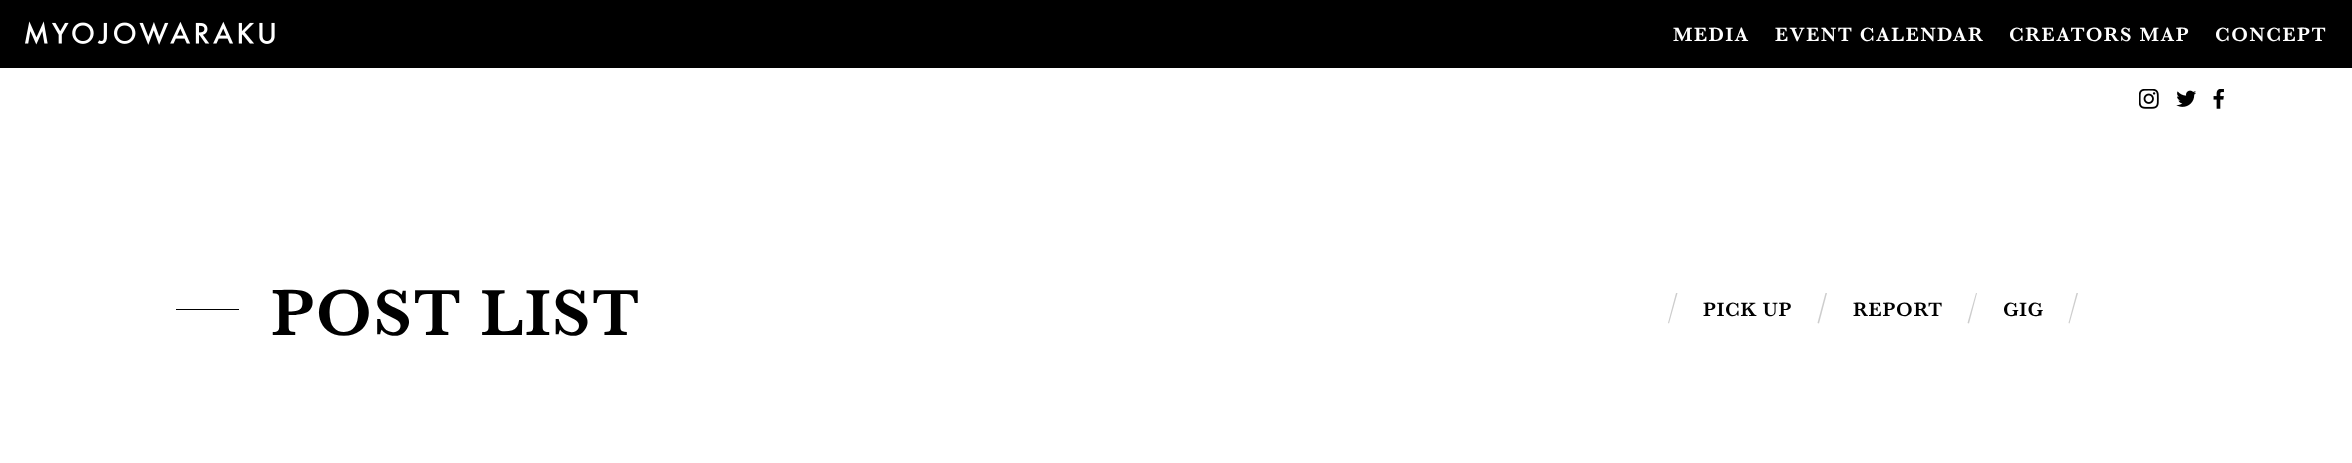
<svg xmlns="http://www.w3.org/2000/svg" xmlns:xlink="http://www.w3.org/1999/xlink" width="2352" height="463" viewBox="0 0 2352 463">
<style>
.cls-1{font:600 20px 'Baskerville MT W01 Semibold';letter-spacing:1.5px;fill:#ffffff}
.cls-2{font:600 67.5px 'Baskerville MT W01 Semibold';letter-spacing:1.25px;fill:#000000}
.cls-3{font:600 20px 'Baskerville MT W01 Semibold';letter-spacing:0.75px;fill:#000000}
</style>
<rect width="100%" height="100%" fill="#ffffff"/>
<rect fill="#000000" x="0" y="0" width="2352" height="68"/>
<image xlink:href="image0.png" x="25" y="21" width="250" height="24"/>
<image xlink:href="image1.png" x="2139" y="89" width="20" height="20"/>
<image xlink:href="image2.png" x="2176" y="90" width="20" height="17"/>
<image xlink:href="image3.png" x="2213" y="89" width="11" height="20"/>
<rect fill="#000000" x="176" y="309" width="63" height="1"/>
<path fill="#cdcdcd" d="M1676 293H1677.5L1669 323.5L1668 323Z"/>
<path fill="#cdcdcd" d="M1825.5 293H1827L1819 323.5L1817.5 323Z"/>
<path fill="#cdcdcd" d="M1976 293H1977L1969 323.5L1967.5 323Z"/>
<path fill="#cdcdcd" d="M2076.5 293H2078L2069.5 323.5L2068.5 323Z"/>
<text class="cls-1" x="1673" y="41">MEDIA</text>
<text class="cls-1" x="1775" y="41">EVENT CALENDAR</text>
<text class="cls-1" x="2009" y="41">CREATORS MAP</text>
<text class="cls-1" x="2215" y="41">CONCEPT</text>
<text class="cls-2" x="271" y="335">POST LIST</text>
<text class="cls-3" x="1703" y="316">PICK UP</text>
<text class="cls-3" x="1853" y="316">REPORT</text>
<text class="cls-3" x="2003" y="316">GIG</text>
</svg>
